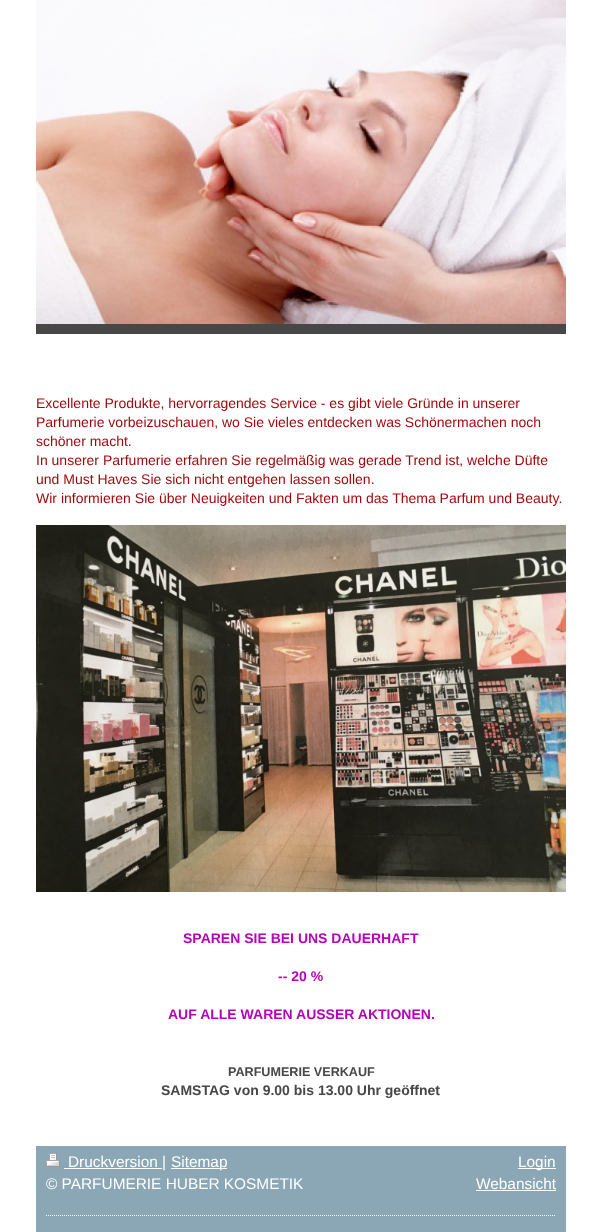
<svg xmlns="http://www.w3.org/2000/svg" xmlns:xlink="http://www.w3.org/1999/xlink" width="602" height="1232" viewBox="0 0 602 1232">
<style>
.cls-1{font:14px Liberation Sans;fill:#9f0408}
.cls-2{font:bold 14px Liberation Sans;fill:#b504b7}
.cls-3{font:bold 12.6px Liberation Sans;fill:#474747}
.cls-4{font:bold 14px Liberation Sans;fill:#474747}
.cls-5{font:15.4px Liberation Sans;fill:#ffffff}
</style>
<rect width="100%" height="100%" fill="#ffffff"/>
<rect fill="#474747" x="36" y="324" width="530" height="10"/>
<image xlink:href="image0.png" x="36" y="0" width="530" height="324"/>
<image xlink:href="image1.png" x="36" y="525" width="530" height="367"/>
<rect fill="#8ba7b5" x="36" y="1146" width="530" height="86"/>
<image xlink:href="image2.png" x="46" y="1153" width="14" height="14"/>
<rect fill="#ffffff" x="64" y="1168" width="98" height="1"/>
<rect fill="#ffffff" x="171" y="1168" width="56" height="1"/>
<rect fill="#ffffff" x="518" y="1168" width="38" height="1"/>
<rect fill="#ffffff" x="476" y="1190" width="80" height="1"/>
<path fill="none" stroke="#ffffff" stroke-dasharray="1 1" d="M46 1215.5H556"/>
<text class="cls-1"><tspan x="36" y="408">Excellente Produkte, hervorragendes Service - es gibt viele Gründe in unserer</tspan><tspan x="36" y="427">Parfumerie vorbeizuschauen, wo Sie vieles entdecken was Schönermachen noch</tspan><tspan x="36" y="446">schöner macht.</tspan><tspan x="36" y="465">In unserer Parfumerie erfahren Sie regelmäßig was gerade Trend ist, welche Düfte</tspan><tspan x="36" y="484">und Must Haves Sie sich nicht entgehen lassen sollen.</tspan><tspan x="36" y="503">Wir informieren Sie über Neuigkeiten und Fakten um das Thema Parfum und Beauty.</tspan></text>
<text class="cls-2" x="183" y="943">SPAREN SIE BEI UNS DAUERHAFT</text>
<text class="cls-2" x="278" y="981">-- 20 %</text>
<text class="cls-2" x="168" y="1019">AUF ALLE WAREN AUSSER AKTIONEN.</text>
<text class="cls-3" x="228" y="1076">PARFUMERIE VERKAUF</text>
<text class="cls-4" x="161" y="1095">SAMSTAG von 9.00 bis 13.00 Uhr geöffnet</text>
<text class="cls-5" x="68" y="1167">Druckversion |</text>
<text class="cls-5" x="171" y="1167">Sitemap</text>
<text class="cls-5" x="46" y="1189">© PARFUMERIE HUBER KOSMETIK</text>
<text class="cls-5" x="518" y="1167">Login</text>
<text class="cls-5" x="476" y="1189">Webansicht</text>
</svg>
